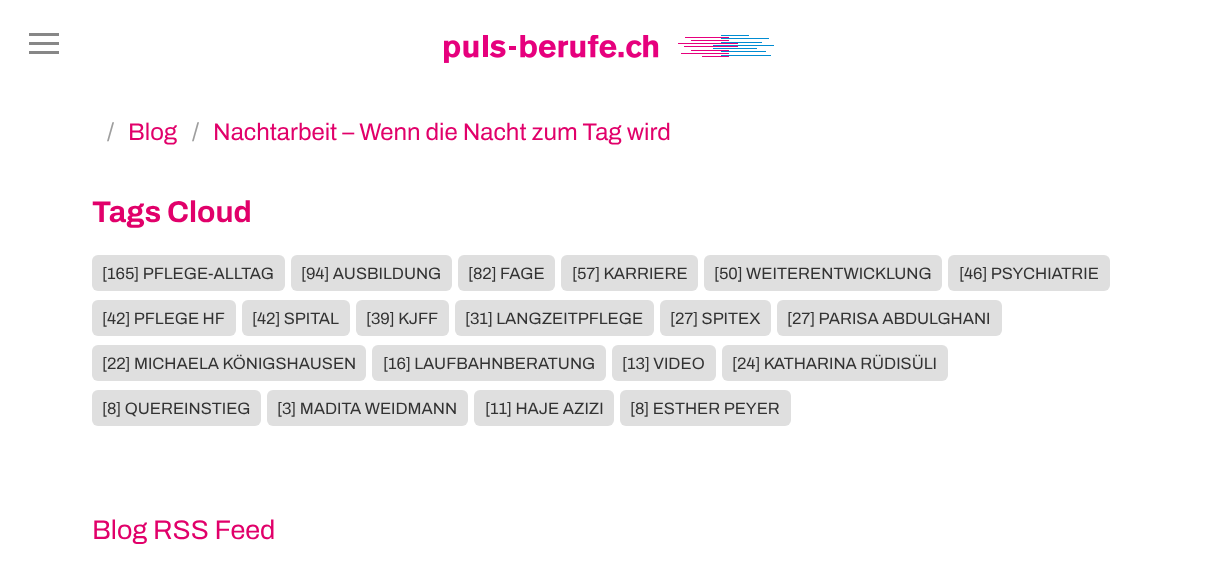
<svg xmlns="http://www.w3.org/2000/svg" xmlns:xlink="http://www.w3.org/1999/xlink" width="1218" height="587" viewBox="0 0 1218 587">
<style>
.cls-1{font:24px Archivo;fill:#9e9e9e}
.cls-2{font:24px Archivo;fill:#e1006a}
.cls-3{font:bold 30px Archivo;fill:#e1006a}
.cls-4{font:16.5px Archivo;fill:#333333}
.cls-5{font:27px Archivo;fill:#e1006a}
</style>
<rect width="100%" height="100%" fill="#ffffff"/>
<rect fill="#878787" x="29" y="42" width="30" height="3"/>
<rect fill="#878787" x="29" y="33" width="30" height="3"/>
<rect fill="#878787" x="29" y="51" width="30" height="3"/>
<image xlink:href="image0.png" x="444" y="35" width="330" height="28"/>
<rect fill="#dfdfdf" x="92" y="255" width="193" height="36" rx="6"/>
<rect fill="#dfdfdf" x="291" y="255" width="161" height="36" rx="6"/>
<rect fill="#dfdfdf" x="458" y="255" width="97" height="36" rx="6"/>
<rect fill="#dfdfdf" x="561" y="255" width="137" height="36" rx="6"/>
<rect fill="#dfdfdf" x="704" y="255" width="238" height="36" rx="6"/>
<rect fill="#dfdfdf" x="948" y="255" width="162" height="36" rx="6"/>
<rect fill="#dfdfdf" x="92" y="300" width="144" height="36" rx="6"/>
<rect fill="#dfdfdf" x="242" y="300" width="108" height="36" rx="6"/>
<rect fill="#dfdfdf" x="356" y="300" width="93" height="36" rx="6"/>
<rect fill="#dfdfdf" x="455" y="300" width="199" height="36" rx="6"/>
<rect fill="#dfdfdf" x="660" y="300" width="111" height="36" rx="6"/>
<rect fill="#dfdfdf" x="777" y="300" width="225" height="36" rx="6"/>
<rect fill="#dfdfdf" x="92" y="345" width="274" height="36" rx="6"/>
<rect fill="#dfdfdf" x="372" y="345" width="234" height="36" rx="6"/>
<rect fill="#dfdfdf" x="612" y="345" width="104" height="36" rx="6"/>
<rect fill="#dfdfdf" x="722" y="345" width="226" height="36" rx="6"/>
<rect fill="#dfdfdf" x="92" y="390" width="169" height="36" rx="6"/>
<rect fill="#dfdfdf" x="267" y="390" width="201" height="36" rx="6"/>
<rect fill="#dfdfdf" x="474" y="390" width="140" height="36" rx="6"/>
<rect fill="#dfdfdf" x="620" y="390" width="171" height="36" rx="6"/>
<text class="cls-1" x="107" y="140">/</text>
<text class="cls-2" x="128" y="140">Blog</text>
<text class="cls-1" x="192" y="140">/</text>
<text class="cls-2" x="213" y="140">Nachtarbeit – Wenn die Nacht zum Tag wird</text>
<text class="cls-3" x="92" y="222">Tags Cloud</text>
<text class="cls-4" x="102" y="279">[165] PFLEGE-ALLTAG</text>
<text class="cls-4" x="301" y="279">[94] AUSBILDUNG</text>
<text class="cls-4" x="468" y="279">[82] FAGE</text>
<text class="cls-4" x="572" y="279">[57] KARRIERE</text>
<text class="cls-4" x="714" y="279">[50] WEITERENTWICKLUNG</text>
<text class="cls-4" x="959" y="279">[46] PSYCHIATRIE</text>
<text class="cls-4" x="102" y="324">[42] PFLEGE HF</text>
<text class="cls-4" x="252" y="324">[42] SPITAL</text>
<text class="cls-4" x="366" y="324">[39] KJFF</text>
<text class="cls-4" x="465" y="324">[31] LANGZEITPFLEGE</text>
<text class="cls-4" x="670" y="324">[27] SPITEX</text>
<text class="cls-4" x="787" y="324">[27] PARISA ABDULGHANI</text>
<text class="cls-4" x="102" y="369">[22] MICHAELA KÖNIGSHAUSEN</text>
<text class="cls-4" x="383" y="369">[16] LAUFBAHNBERATUNG</text>
<text class="cls-4" x="622" y="369">[13] VIDEO</text>
<text class="cls-4" x="732" y="369">[24] KATHARINA RÜDISÜLI</text>
<text class="cls-4" x="102" y="414">[8] QUEREINSTIEG</text>
<text class="cls-4" x="277" y="414">[3] MADITA WEIDMANN</text>
<text class="cls-4" x="485" y="414">[11] HAJE AZIZI</text>
<text class="cls-4" x="630" y="414">[8] ESTHER PEYER</text>
<text class="cls-5" x="92" y="539">Blog RSS Feed</text>
</svg>
